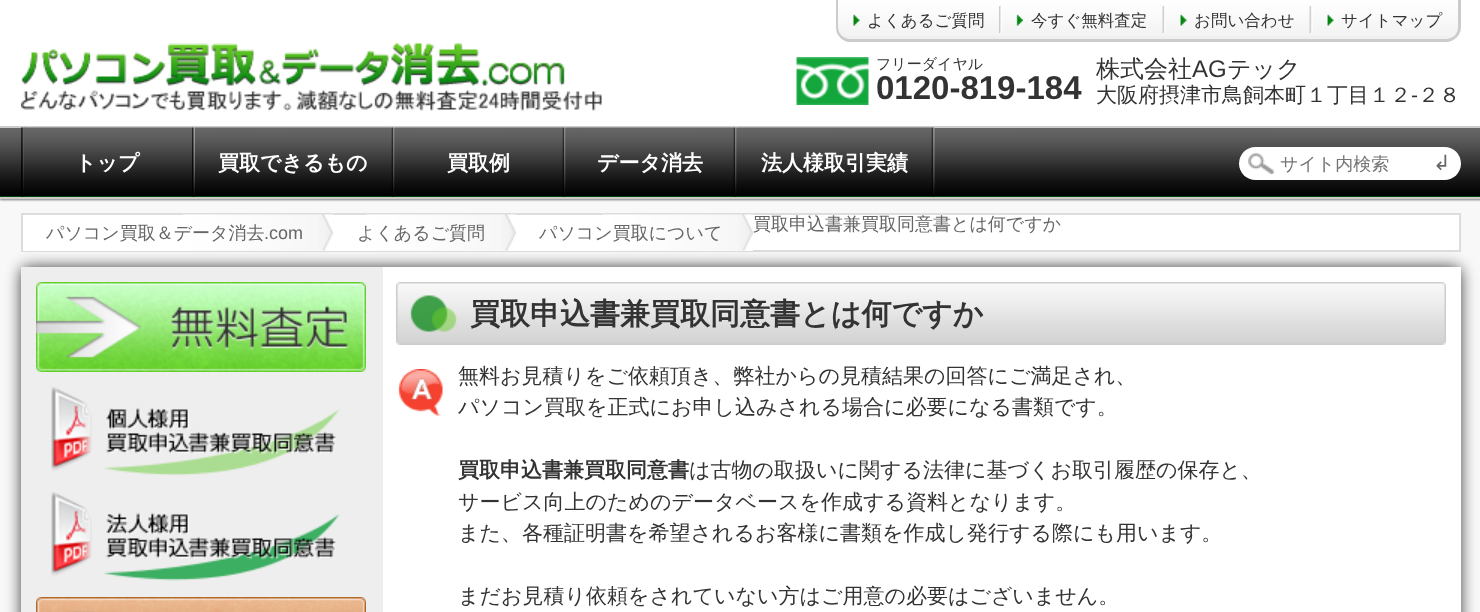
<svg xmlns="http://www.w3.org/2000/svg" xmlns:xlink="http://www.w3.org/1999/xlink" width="1480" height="612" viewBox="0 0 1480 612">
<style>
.cls-1{font:500 16.5px WenQuanYi Zen Hei;fill:#333333}
.cls-2{font:500 15px WenQuanYi Zen Hei;fill:#333333}
.cls-3{font:bold 33px Liberation Sans;fill:#333333}
.cls-4{font:500 24px WenQuanYi Zen Hei;fill:#333333}
.cls-5{font:24px Liberation Sans;fill:#333333}
.cls-6{font:500 21px WenQuanYi Zen Hei;fill:#333333}
.cls-7{font:21px Liberation Sans;fill:#333333}
.cls-8{font:bold 21px WenQuanYi Zen Hei;fill:#ffffff}
.cls-9{font:500 18px WenQuanYi Zen Hei;fill:#757575}
.cls-10{font:21px DejaVu Sans;fill:#666666}
.cls-11{font:500 18px WenQuanYi Zen Hei;fill:#666666}
.cls-12{font:18px Liberation Sans;fill:#666666}
.cls-13{font:bold 30px WenQuanYi Zen Hei;fill:#333333}
.cls-14{font:bold 21px WenQuanYi Zen Hei;fill:#333333}
</style>
<rect width="100%" height="100%" fill="#f8f8f8"/>
<rect fill="#ffffff" x="0" y="0" width="1480" height="126"/>
<image xlink:href="image0.png" x="21" y="42" width="581" height="69"/>
<path fill="#f0f0f0" d="M836 0H1461V27C1461 35.5 1454.5 42 1446 42H851C842.5 42 836 35.5 836 27Z"/>
<image xlink:href="image1.png" x="836" y="0" width="625" height="36"/>
<path fill="#cccccc" fill-rule="evenodd" d="M836 0H1461V27C1461 35 1454 42 1446 42H850C842 42 836 35 836 27ZM838 0H1458V27C1458 34 1453 39 1446 39H850C844 39 838 34 838 27Z"/>
<image xlink:href="image2.png" x="853" y="14" width="7" height="12"/>
<image xlink:href="image3.png" x="999" y="6" width="24" height="27"/>
<image xlink:href="image4.png" x="1162" y="6" width="25" height="27"/>
<image xlink:href="image4.png" x="1309" y="6" width="25" height="27"/>
<image xlink:href="image5.png" x="796" y="57" width="73" height="48"/>
<rect fill="#000000" fill-opacity="0.5" filter="blur(1px)" x="0" y="128" width="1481" height="72"/>
<image xlink:href="image6.png" x="0" y="128" width="1480" height="69"/>
<rect fill="#cccccc" x="0" y="126" width="1480" height="2"/>
<rect fill="#cccccc" x="0" y="197" width="1480" height="2"/>
<image xlink:href="image7.png" x="21" y="127" width="5" height="70"/>
<image xlink:href="image8.png" x="192" y="127" width="3" height="70"/>
<image xlink:href="image9.png" x="24" y="127" width="168" height="70"/>
<image xlink:href="image10.png" x="391" y="127" width="4" height="70"/>
<image xlink:href="image11.png" x="195" y="127" width="197" height="70"/>
<image xlink:href="image10.png" x="562" y="127" width="4" height="70"/>
<image xlink:href="image12.png" x="394" y="127" width="169" height="70"/>
<image xlink:href="image10.png" x="733" y="127" width="4" height="70"/>
<image xlink:href="image13.png" x="565" y="127" width="169" height="70"/>
<image xlink:href="image10.png" x="931" y="127" width="4" height="70"/>
<image xlink:href="image14.png" x="736" y="127" width="196" height="70"/>
<rect fill="#ffffff" x="1239" y="147" width="222" height="33" rx="16.5"/>
<image xlink:href="image15.png" x="1248" y="153" width="27" height="21"/>
<rect fill="#ffffff" x="753" y="215" width="706" height="35"/>
<rect fill="none" stroke="#dddddd" stroke-width="2" x="22" y="214" width="1438" height="37"/>
<rect fill="#ffffff" x="23" y="215" width="730" height="36"/>
<image xlink:href="image16.png" x="183" y="214" width="150" height="37"/>
<image xlink:href="image16.png" x="366" y="214" width="150" height="37"/>
<image xlink:href="image16.png" x="603" y="214" width="150" height="37"/>
<rect fill="#000000" fill-opacity="0.75" filter="blur(7.5px)" x="21" y="267" width="1440" height="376" rx="8"/>
<rect fill="#ffffff" x="383" y="267" width="1078" height="345"/>
<rect fill="#eeeeee" x="21" y="267" width="362" height="345"/>
<image xlink:href="image17.png" x="36" y="282" width="330" height="90"/>
<image xlink:href="image18.png" x="51" y="387" width="289" height="89"/>
<image xlink:href="image19.png" x="51" y="492" width="289" height="89"/>
<image xlink:href="image20.png" x="36" y="597" width="330" height="15"/>
<image xlink:href="image21.png" x="396" y="282" width="1050" height="63"/>
<image xlink:href="image22.png" x="398" y="369" width="45" height="47"/>
<text class="cls-1" x="867" y="26">よくあるご質問</text>
<text class="cls-1" x="1031" y="26">今すぐ無料査定</text>
<text class="cls-1" x="1194" y="26">お問い合わせ</text>
<text class="cls-1" x="1341" y="26">サイトマップ</text>
<text class="cls-2" x="876" y="69">フリーダイヤル</text>
<text class="cls-3" x="876" y="99">0120-819-184</text>
<text class="cls-4" x="1096" y="77">株式会社</text>
<text class="cls-5" x="1192" y="77">AG</text>
<text class="cls-4" x="1227" y="77">テック</text>
<text class="cls-6" x="1096" y="102">大阪府摂津市鳥飼本町１丁目１２</text>
<text class="cls-7" x="1411" y="102">-</text>
<text class="cls-6" x="1418" y="102">２８</text>
<text class="cls-8" x="75" y="170">トップ</text>
<text class="cls-8" x="218" y="170">買取できるもの</text>
<text class="cls-8" x="447" y="170">買取例</text>
<text class="cls-8" x="597" y="170">データ消去</text>
<text class="cls-8" x="761" y="170">法人様取引実績</text>
<text class="cls-9" x="1280" y="170">サイト内検索</text>
<text class="cls-10" x="1433" y="170">↲</text>
<text class="cls-11" x="46" y="239">パソコン買取＆データ消去</text>
<text class="cls-12" x="264" y="239">.com</text>
<text class="cls-11" x="357" y="239">よくあるご質問</text>
<text class="cls-11" x="539" y="239">パソコン買取について</text>
<text class="cls-11" x="753" y="230">買取申込書兼買取同意書とは何ですか</text>
<text class="cls-13" x="470" y="324">買取申込書兼買取同意書とは何ですか</text>
<text class="cls-6"><tspan x="458" y="383">無料お見積りをご依頼頂き、弊社からの見積結果の回答にご満足され、</tspan><tspan x="458" y="414">パソコン買取を正式にお申し込みされる場合に必要になる書類です。</tspan></text>
<text class="cls-14" x="458" y="477">買取申込書兼買取同意書</text>
<text class="cls-6" x="689" y="477">は古物の取扱いに関する法律に基づくお取引履歴の保存と、</text>
<text class="cls-6"><tspan x="458" y="509">サービス向上のためのデータベースを作成する資料となります。</tspan><tspan x="458" y="540">また、各種証明書を希望されるお客様に書類を作成し発行する際にも用います。</tspan></text>
<text class="cls-6" x="458" y="603">まだお見積り依頼をされていない方はご用意の必要はございません。</text>
</svg>
